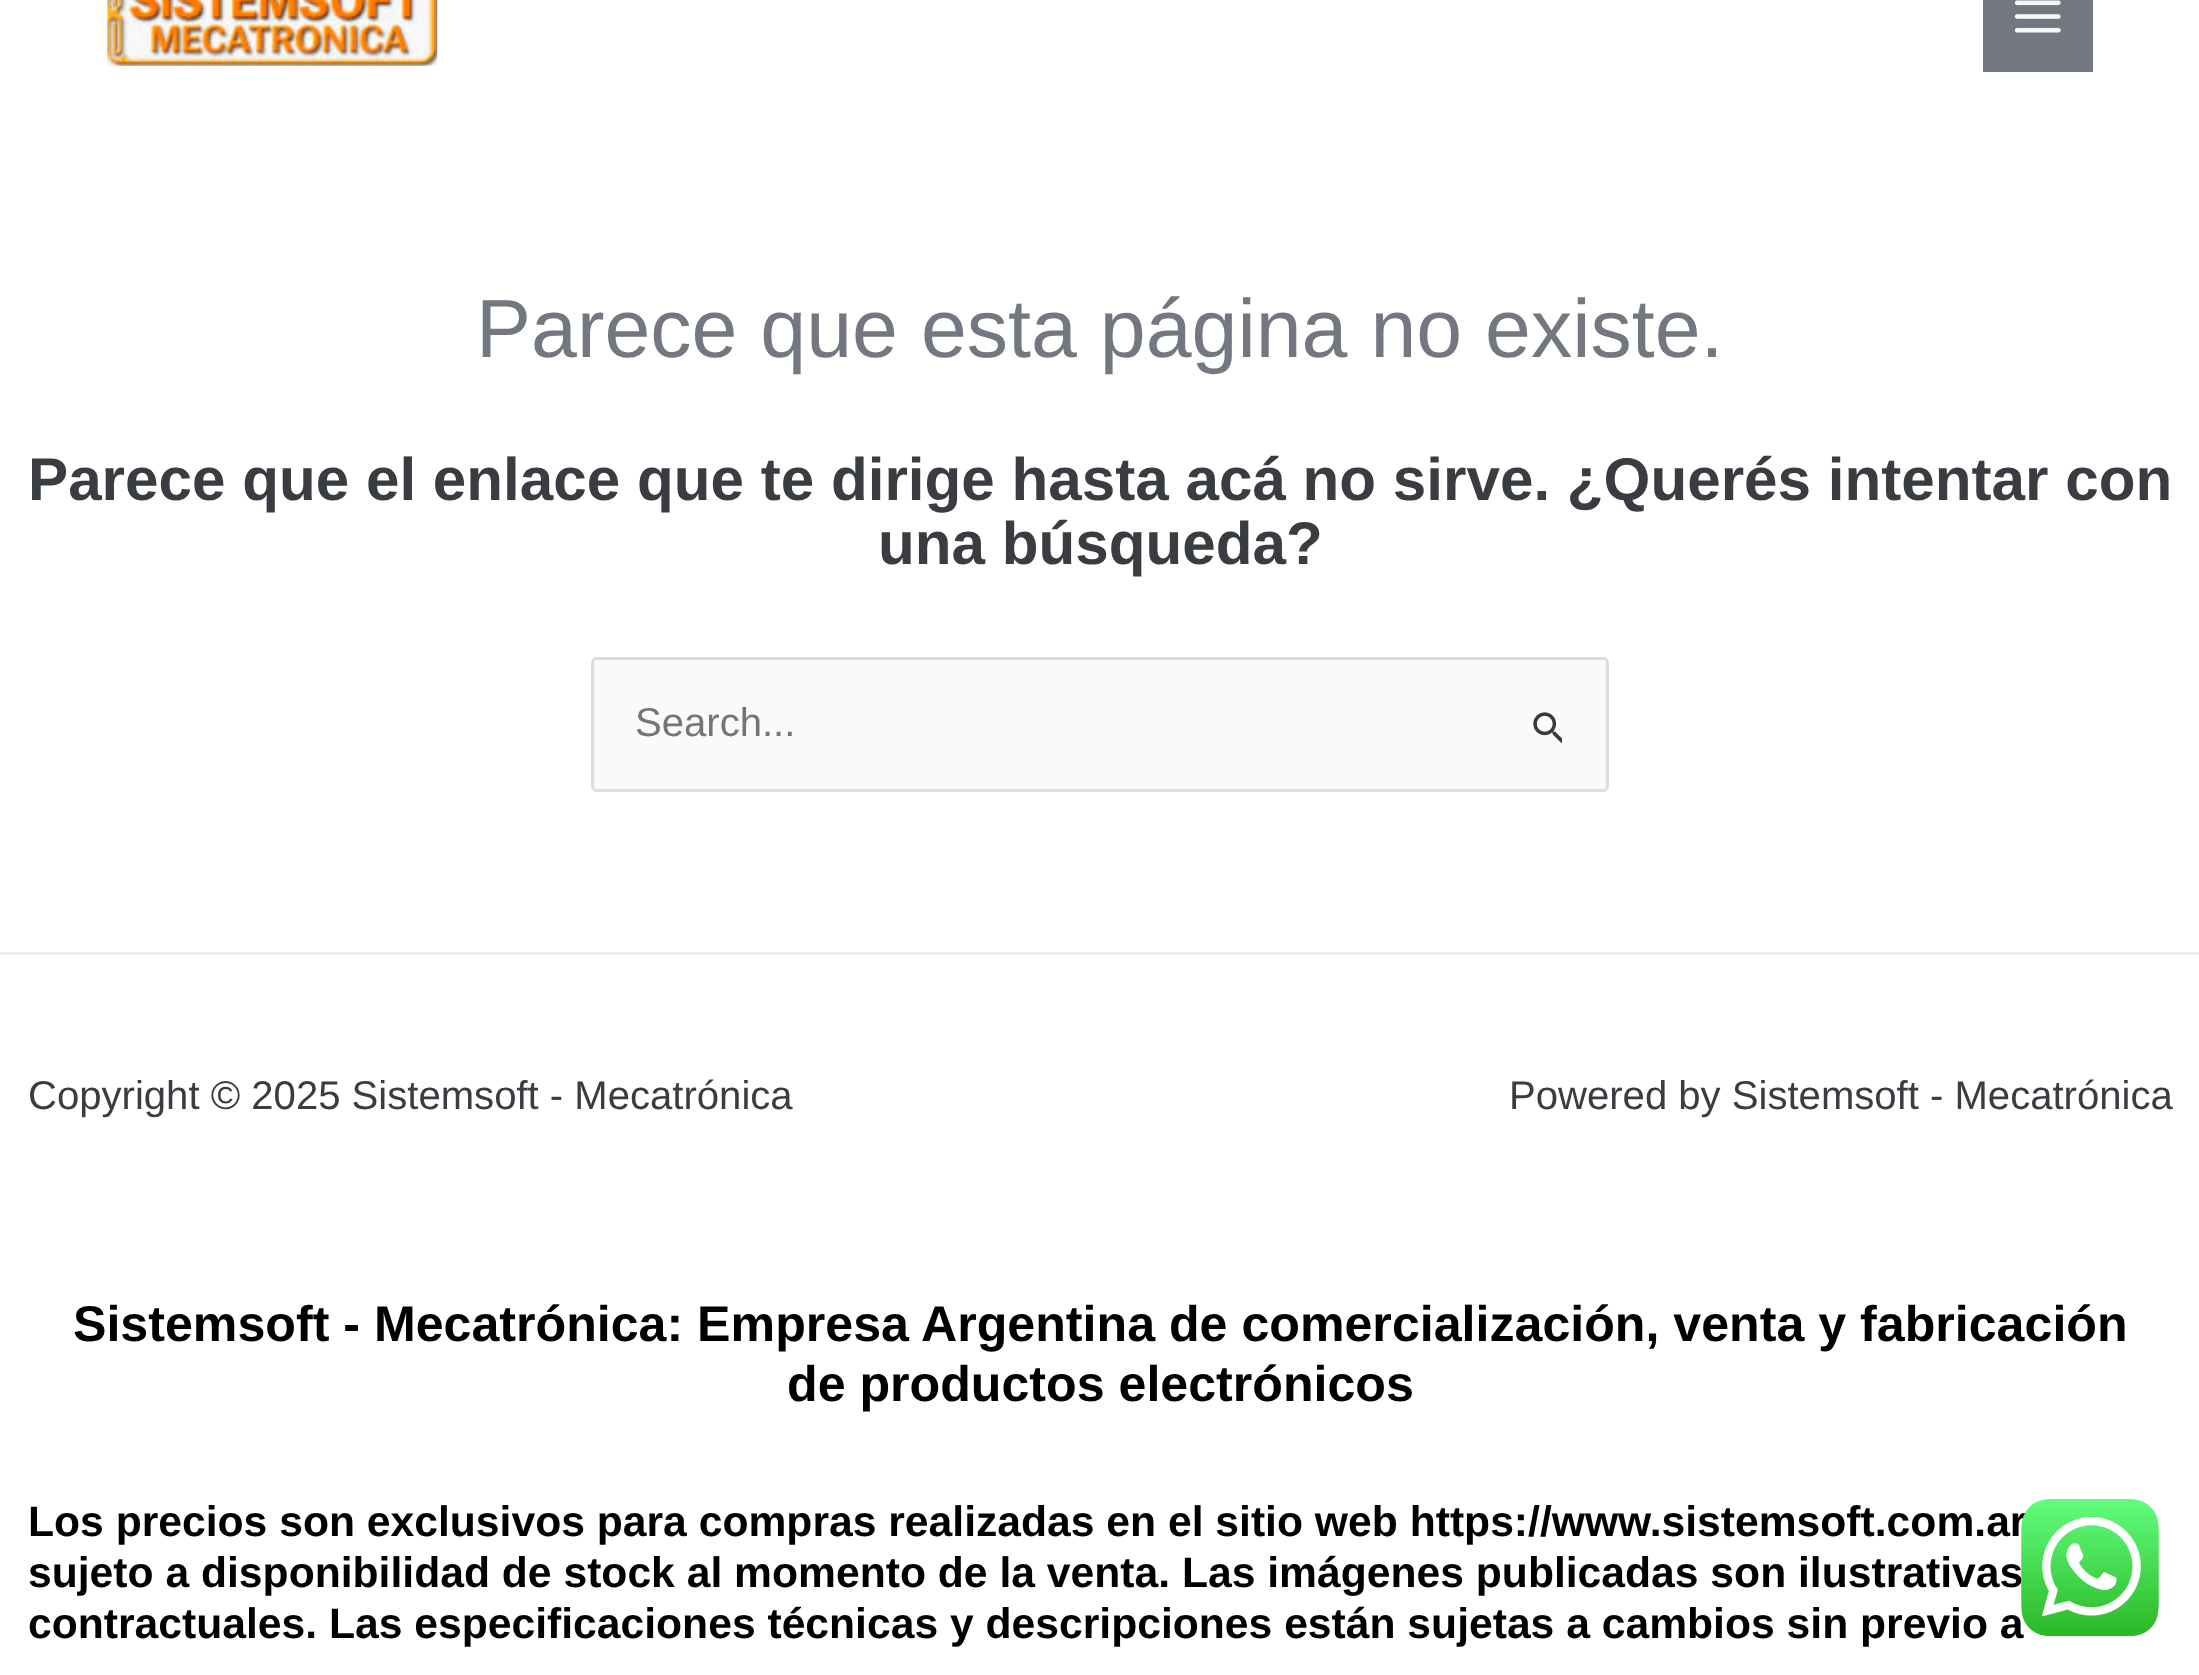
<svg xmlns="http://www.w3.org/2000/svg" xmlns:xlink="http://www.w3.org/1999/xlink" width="2199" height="1675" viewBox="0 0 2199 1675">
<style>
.cls-1{font:82.5px Liberation Sans;fill:#737880}
.cls-2{font:bold 60.2px Liberation Sans;fill:#393c40}
.cls-3{font:40.1px Liberation Sans;fill:#757575}
.cls-4{font:40.1px Liberation Sans;fill:#393c40}
.cls-5{font:bold 50.15px Liberation Sans;fill:#000000}
.cls-6{font:bold 42.65px Liberation Sans;fill:#000000}
</style>
<rect width="100%" height="100%" fill="#ffffff"/>
<image xlink:href="image0.png" x="107" y="0" width="331" height="66"/>
<rect fill="#737880" x="1983" y="0" width="110" height="72"/>
<image xlink:href="image1.png" x="2014" y="0" width="47" height="33"/>
<rect fill="#fafafa" stroke="#dddddd" stroke-width="3" x="592.5" y="658.5" width="1015" height="132" rx="4.5"/>
<image xlink:href="image2.png" x="1533" y="712" width="29" height="31"/>
<rect fill="#eeeeee" x="0" y="952" width="2199" height="3"/>
<text class="cls-1" x="476" y="357">Parece que esta página no existe.</text>
<text class="cls-2" x="28" y="500">Parece que el enlace que te dirige hasta acá no sirve. ¿Querés intentar con</text>
<text class="cls-2" x="878" y="564">una búsqueda?</text>
<text class="cls-3" x="635" y="736">Search...</text>
<text class="cls-4" x="28" y="1109">Copyright © 2025 Sistemsoft - Mecatrónica</text>
<text class="cls-4" x="1509" y="1109">Powered by Sistemsoft - Mecatrónica</text>
<text class="cls-5" x="73" y="1341">Sistemsoft - Mecatrónica: Empresa Argentina de comercialización, venta y fabricación</text>
<text class="cls-5" x="787" y="1401">de productos electrónicos</text>
<text class="cls-6"><tspan x="28" y="1536">Los precios son exclusivos para compras realizadas en el sitio web https://www.sistemsoft.com.ar</tspan><tspan x="28" y="1587">sujeto a disponibilidad de stock al momento de la venta. Las imágenes publicadas son ilustrativas</tspan><tspan x="28" y="1638">contractuales. Las especificaciones técnicas y descripciones están sujetas a cambios sin previo a</tspan></text>
<image xlink:href="image3.png" x="2021" y="1499" width="138" height="137"/>
</svg>
